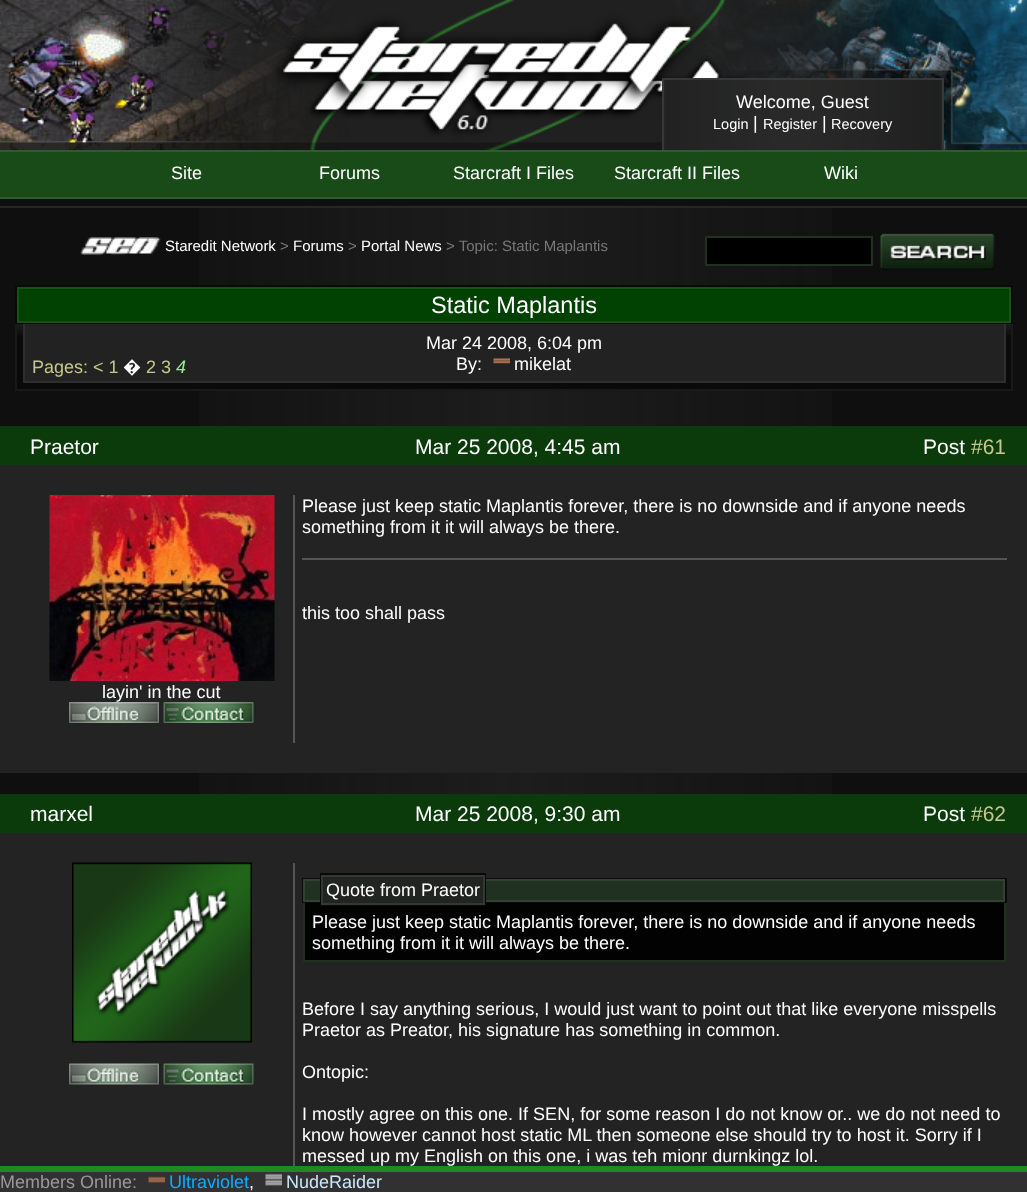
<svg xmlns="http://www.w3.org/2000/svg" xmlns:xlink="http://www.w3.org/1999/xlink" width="1027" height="1192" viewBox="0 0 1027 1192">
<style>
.cls-1{font:18px Liberation Sans;fill:#ffffff}
.cls-2{font:14.5px Liberation Sans;fill:#ffffff}
.cls-3{font:15px Liberation Sans;fill:#ffffff}
.cls-4{font:15px Liberation Sans;fill:#787878}
.cls-5{font:23.5px Liberation Sans;fill:#ffffff}
.cls-6{font:18px Liberation Sans;fill:#c5c78d}
.cls-7{font:18px Noto Sans;fill:#ffffff}
.cls-8{font:italic 18px Liberation Sans;fill:#90ee90}
.cls-9{font:21px Liberation Sans;fill:#ffffff}
.cls-10{font:21px Liberation Sans;fill:#c5c78d}
.cls-11{font:18px Liberation Sans;fill:#999999}
.cls-12{font:18px Liberation Sans;fill:#11aaff}
.cls-13{font:18px Liberation Sans;fill:#c9e8fb}
</style>
<rect width="100%" height="100%" fill="#0f0f0f"/>
<image xlink:href="image0.png" x="0" y="0" width="364" height="150"/>
<image xlink:href="image2.png" x="671" y="0" width="356" height="150"/>
<image xlink:href="image1.png" x="65" y="0" width="900" height="150"/>
<image xlink:href="image3.png" x="664" y="80" width="278" height="70"/>
<rect fill="#383838" x="662" y="78" width="282" height="2"/>
<rect fill="#383838" x="942" y="78" width="2" height="72"/>
<rect fill="#383838" x="662" y="78" width="2" height="72"/>
<rect fill="#184b18" x="0" y="152" width="1027" height="45"/>
<rect fill="#2d5d2d" x="0" y="150" width="1027" height="2"/>
<rect fill="#2d5d2d" x="0" y="197" width="1027" height="2"/>
<image xlink:href="image4.png" x="199" y="205" width="633" height="589"/>
<rect fill="#262626" x="0" y="206" width="1027" height="2"/>
<image xlink:href="image5.png" x="80" y="237" width="81" height="18"/>
<rect fill="#000000" stroke="#213121" stroke-width="2" x="706" y="237" width="166" height="28"/>
<image xlink:href="image6.png" x="880" y="233" width="115" height="37"/>
<rect fill="none" stroke="#0a0a0a" stroke-width="2" x="16" y="286" width="996" height="37"/>
<rect fill="#014101" stroke="#175117" stroke-width="2" x="18" y="288" width="992" height="34"/>
<rect fill="#0a0a0a" x="17" y="324" width="994" height="65"/>
<image xlink:href="image7.png" x="17" y="324" width="994" height="11"/>
<rect fill="#181919" x="1011" y="324" width="2" height="66"/>
<rect fill="#181919" x="15" y="389" width="998" height="2"/>
<rect fill="#181919" x="15" y="324" width="2" height="66"/>
<rect fill="#222222" x="25" y="324" width="979" height="57"/>
<rect fill="#2e2e2e" x="1004" y="324" width="2" height="59"/>
<rect fill="#2e2e2e" x="23" y="381" width="982" height="2"/>
<rect fill="#2e2e2e" x="23" y="324" width="2" height="59"/>
<image xlink:href="image8.png" x="493" y="358" width="17" height="6"/>
<rect fill="#0b3b0b" x="0" y="426" width="1027" height="39"/>
<rect fill="#232323" x="0" y="465" width="1027" height="308"/>
<rect fill="#555555" x="293" y="495" width="2" height="248"/>
<rect fill="#555555" x="302" y="558" width="705" height="2"/>
<image xlink:href="image9.png" x="49" y="495" width="226" height="186"/>
<image xlink:href="image10.png" x="69" y="702" width="90" height="21"/>
<image xlink:href="image11.png" x="163" y="702" width="91" height="21"/>
<rect fill="#0b3b0b" x="0" y="794" width="1027" height="39"/>
<rect fill="#232323" x="0" y="833" width="1027" height="333"/>
<image xlink:href="image12.png" x="72" y="862" width="180" height="181"/>
<image xlink:href="image13.png" x="69" y="1063" width="90" height="22"/>
<image xlink:href="image14.png" x="163" y="1063" width="91" height="22"/>
<rect fill="#555555" x="293" y="863" width="2" height="303"/>
<rect fill="none" stroke="#0a0a0a" stroke-width="2" x="303" y="879" width="703" height="23"/>
<rect fill="#213121" stroke="#334133" stroke-width="2" x="304" y="880" width="700" height="21"/>
<rect fill="#020202" x="305" y="903" width="699" height="57"/>
<rect fill="none" stroke="#090909" stroke-width="2" x="321" y="874" width="164" height="31"/>
<rect fill="#212521" x="323" y="878" width="160" height="25"/>
<rect fill="none" stroke="#343734" stroke-width="2" x="322" y="876" width="162" height="28"/>
<rect fill="#213121" x="1004" y="903" width="2" height="59"/>
<rect fill="#213121" x="303" y="960" width="702" height="2"/>
<rect fill="#213121" x="303" y="903" width="2" height="59"/>
<rect fill="#313131" x="0" y="1172" width="1027" height="20"/>
<rect fill="#228822" x="0" y="1166" width="1027" height="6"/>
<image xlink:href="image15.png" x="148" y="1176" width="17" height="7"/>
<image xlink:href="image16.png" x="265" y="1173" width="17" height="13"/>
<text class="cls-1" x="736" y="108">Welcome, Guest</text>
<text class="cls-2" x="713" y="129">Login</text>
<text class="cls-1" x="753" y="129">|</text>
<text class="cls-2" x="763" y="129">Register</text>
<text class="cls-1" x="822" y="129">|</text>
<text class="cls-2" x="831" y="129">Recovery</text>
<text class="cls-1" x="171" y="179">Site</text>
<text class="cls-1" x="319" y="179">Forums</text>
<text class="cls-1" x="453" y="179">Starcraft I Files</text>
<text class="cls-1" x="614" y="179">Starcraft II Files</text>
<text class="cls-1" x="824" y="179">Wiki</text>
<text class="cls-3" x="165" y="251">Staredit Network</text>
<text class="cls-4" x="280" y="251">&gt;</text>
<text class="cls-3" x="293" y="251">Forums</text>
<text class="cls-4" x="348" y="251">&gt;</text>
<text class="cls-3" x="361" y="251">Portal News</text>
<text class="cls-4" x="446" y="251">&gt; Topic: Static Maplantis</text>
<text class="cls-5" x="431" y="313">Static Maplantis</text>
<text class="cls-1" x="426" y="349">Mar 24 2008, 6:04 pm</text>
<text class="cls-6" x="32" y="373">Pages: &lt; 1</text>
<text class="cls-7" x="123" y="373">�</text>
<text class="cls-6" x="146" y="373">2 3</text>
<text class="cls-8" x="176" y="373">4</text>
<text class="cls-1" x="456" y="370">By:</text>
<text class="cls-1" x="514" y="370">mikelat</text>
<text class="cls-9" x="30" y="454">Praetor</text>
<text class="cls-9" x="415" y="454">Mar 25 2008, 4:45 am</text>
<text class="cls-9" x="923" y="454">Post</text>
<text class="cls-10" x="971" y="454">#61</text>
<text class="cls-1"><tspan x="302" y="512">Please just keep static Maplantis forever, there is no downside and if anyone needs</tspan><tspan x="302" y="533">something from it it will always be there.</tspan></text>
<text class="cls-1" x="302" y="619">this too shall pass</text>
<text class="cls-1" x="102" y="698">layin' in the cut</text>
<text class="cls-9" x="30" y="821">marxel</text>
<text class="cls-9" x="415" y="821">Mar 25 2008, 9:30 am</text>
<text class="cls-9" x="923" y="821">Post</text>
<text class="cls-10" x="971" y="821">#62</text>
<text class="cls-1" x="326" y="896">Quote from Praetor</text>
<text class="cls-1"><tspan x="312" y="928">Please just keep static Maplantis forever, there is no downside and if anyone needs</tspan><tspan x="312" y="949">something from it it will always be there.</tspan></text>
<text class="cls-1"><tspan x="302" y="1015">Before I say anything serious, I would just want to point out that like everyone misspells</tspan><tspan x="302" y="1036">Praetor as Preator, his signature has something in common.</tspan></text>
<text class="cls-1" x="302" y="1078">Ontopic:</text>
<text class="cls-1"><tspan x="302" y="1120">I mostly agree on this one. If SEN, for some reason I do not know or.. we do not need to</tspan><tspan x="302" y="1141">know however cannot host static ML then someone else should try to host it. Sorry if I</tspan><tspan x="302" y="1162">messed up my English on this one, i was teh mionr durnkingz lol.</tspan></text>
<text class="cls-11" x="0" y="1188">Members Online:</text>
<text class="cls-12" x="169" y="1188">Ultraviolet</text>
<text class="cls-13" x="286" y="1188">NudeRaider</text>
<text class="cls-1" x="249" y="1188">,</text>
</svg>
